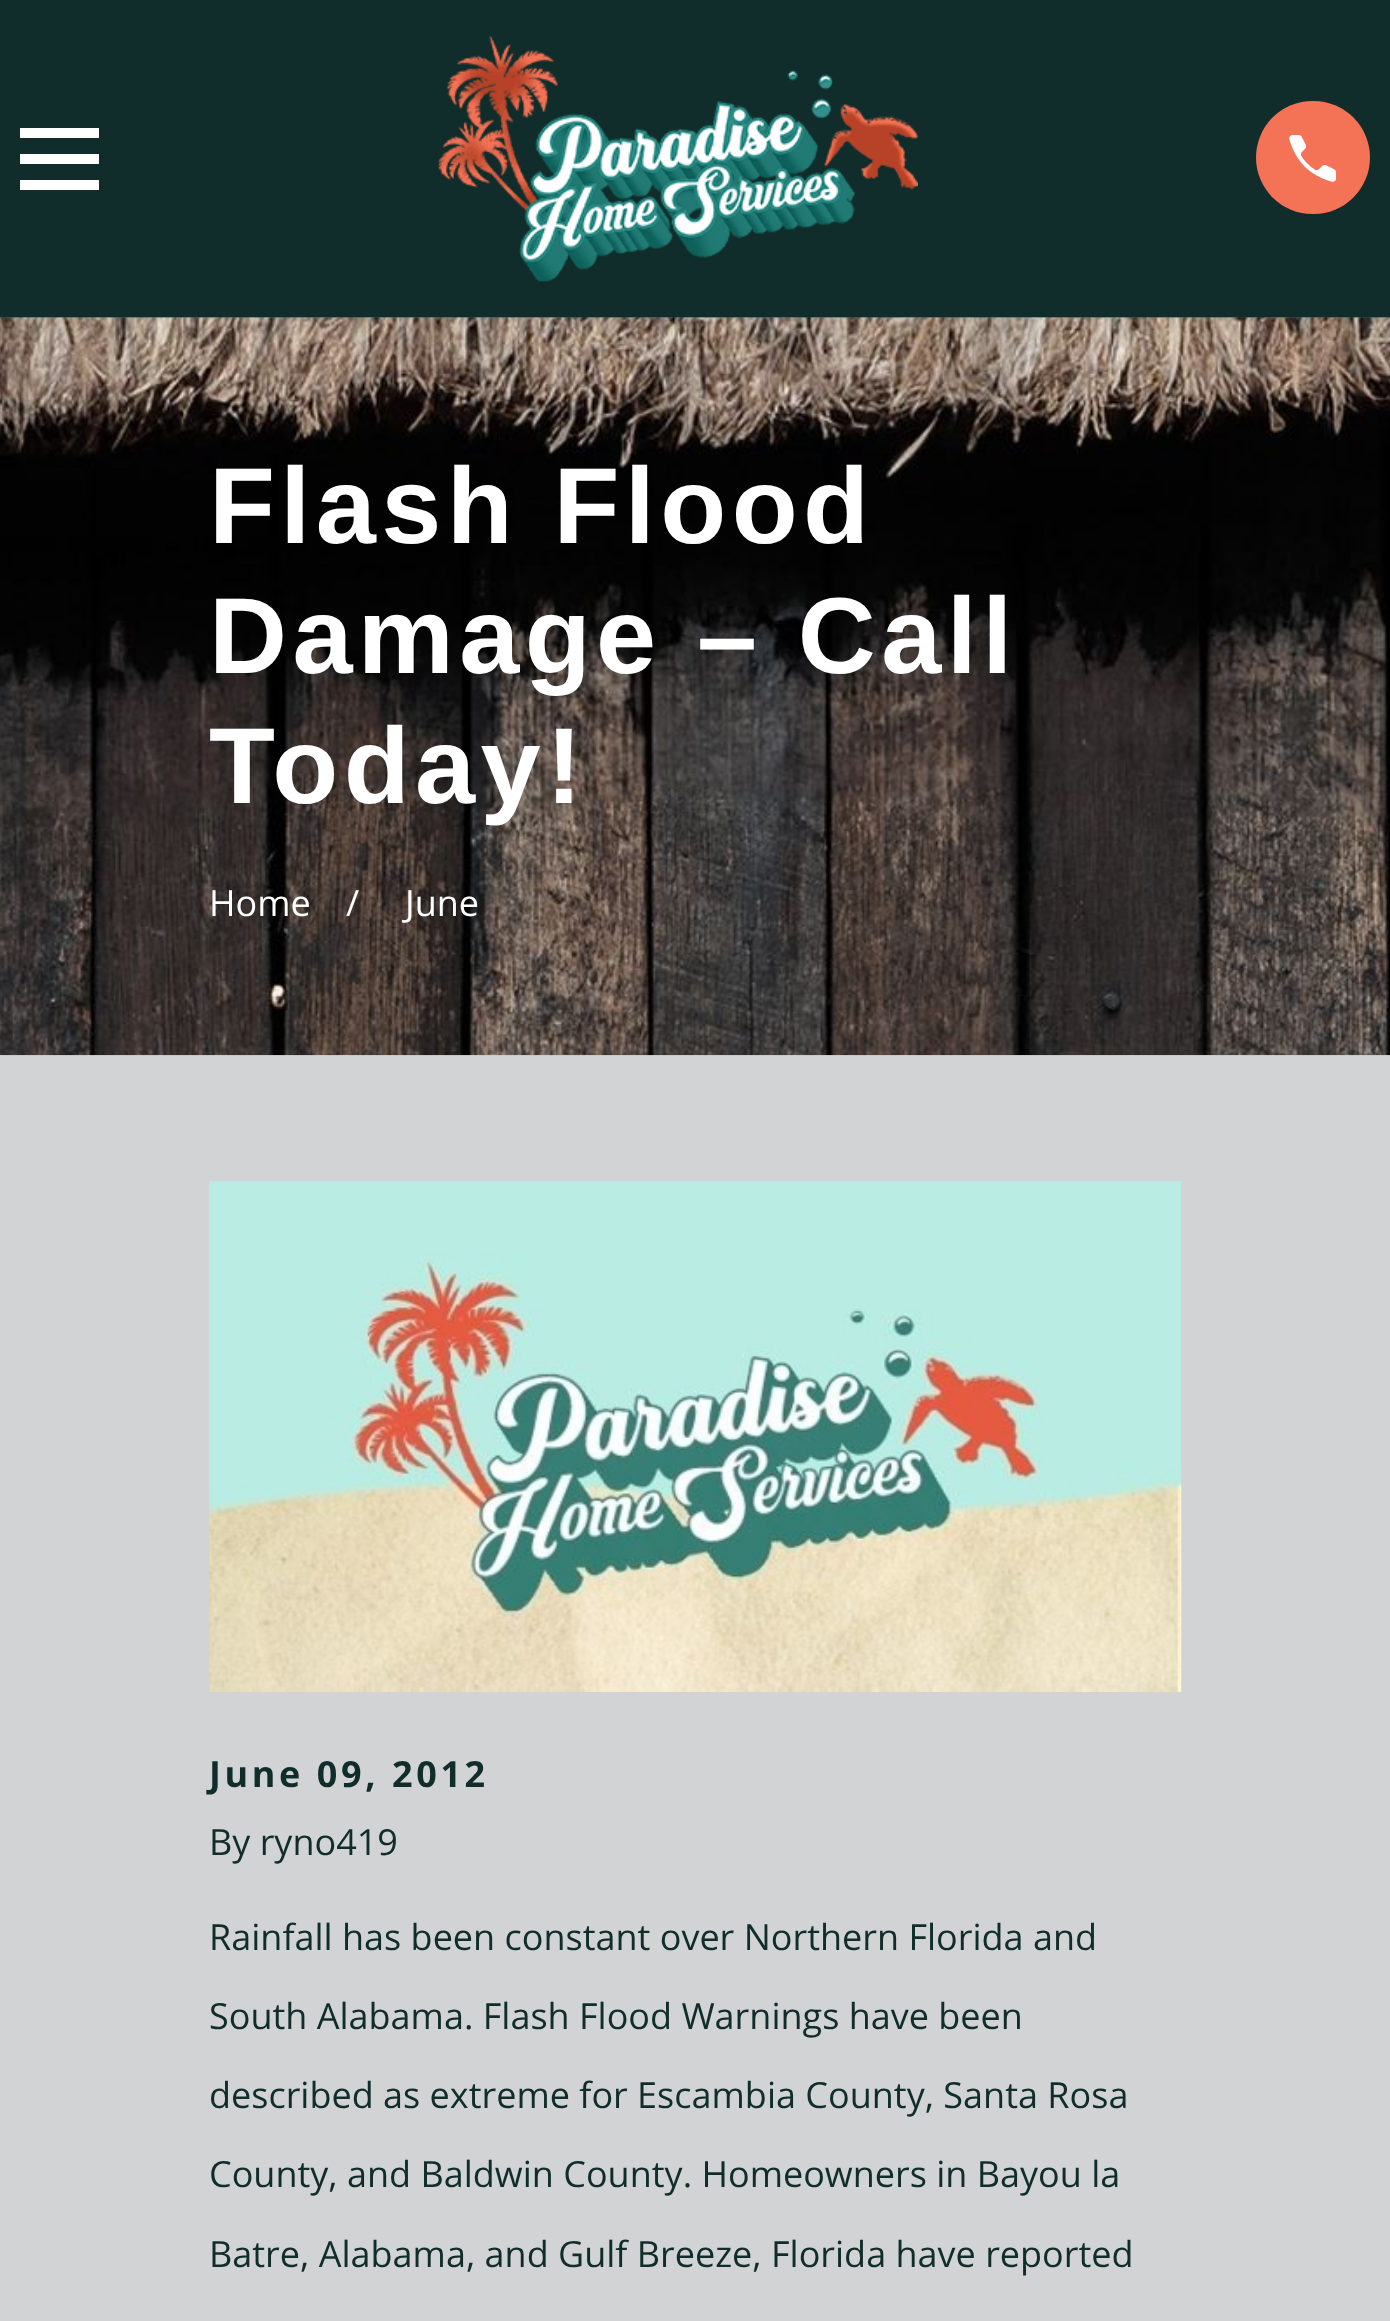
<svg xmlns="http://www.w3.org/2000/svg" xmlns:xlink="http://www.w3.org/1999/xlink" width="1390" height="2321" viewBox="0 0 1390 2321">
<style>
.cls-1{font:bold 108px Liberation Sans;letter-spacing:5.4px;fill:#ffffff}
.cls-2{font:36px Open Sans;fill:#ffffff}
.cls-3{font:bold 36px Open Sans;letter-spacing:3.6px;fill:#102d2b}
.cls-4{font:36px Open Sans;fill:#102d2b}
</style>
<rect width="100%" height="100%" fill="#d1d3d4"/>
<rect fill="#102d2b" x="0" y="0" width="1390" height="317"/>
<path fill="#ffffff" d="M20 128V138H99V128ZM20 154V164H99V154ZM20 180V190H99V180Z"/>
<image xlink:href="image0.png" x="438" y="36" width="480" height="246"/>
<rect fill="#f47255" x="1256" y="101" width="114" height="113" rx="56.5"/>
<image xlink:href="image1.png" x="1289" y="135" width="48" height="47"/>
<rect fill="#205a56" x="0" y="317" width="1390" height="1"/>
<image xlink:href="image2.png" x="0" y="317" width="1390" height="739"/>
<image xlink:href="image3.png" x="209" y="1181" width="973" height="511"/>
<text class="cls-1"><tspan x="209" y="543">Flash Flood</tspan><tspan x="209" y="673">Damage – Call</tspan><tspan x="209" y="803">Today!</tspan></text>
<text class="cls-2" x="209" y="916">Home</text>
<text class="cls-2" x="346" y="916">/</text>
<text class="cls-2" x="405" y="916">June</text>
<text class="cls-3" x="209" y="1787">June 09, 2012</text>
<text class="cls-4" x="209" y="1855">By ryno419</text>
<text class="cls-4" x="209" y="1950">Rainfall has been constant over Northern Florida and</text>
<text class="cls-4" x="209" y="2029">South Alabama. Flash Flood Warnings have been</text>
<text class="cls-4" x="209" y="2108">described as extreme for Escambia County, Santa Rosa</text>
<text class="cls-4" x="209" y="2187">County, and Baldwin County. Homeowners in Bayou la</text>
<text class="cls-4" x="209" y="2267">Batre, Alabama, and Gulf Breeze, Florida have reported</text>
</svg>
